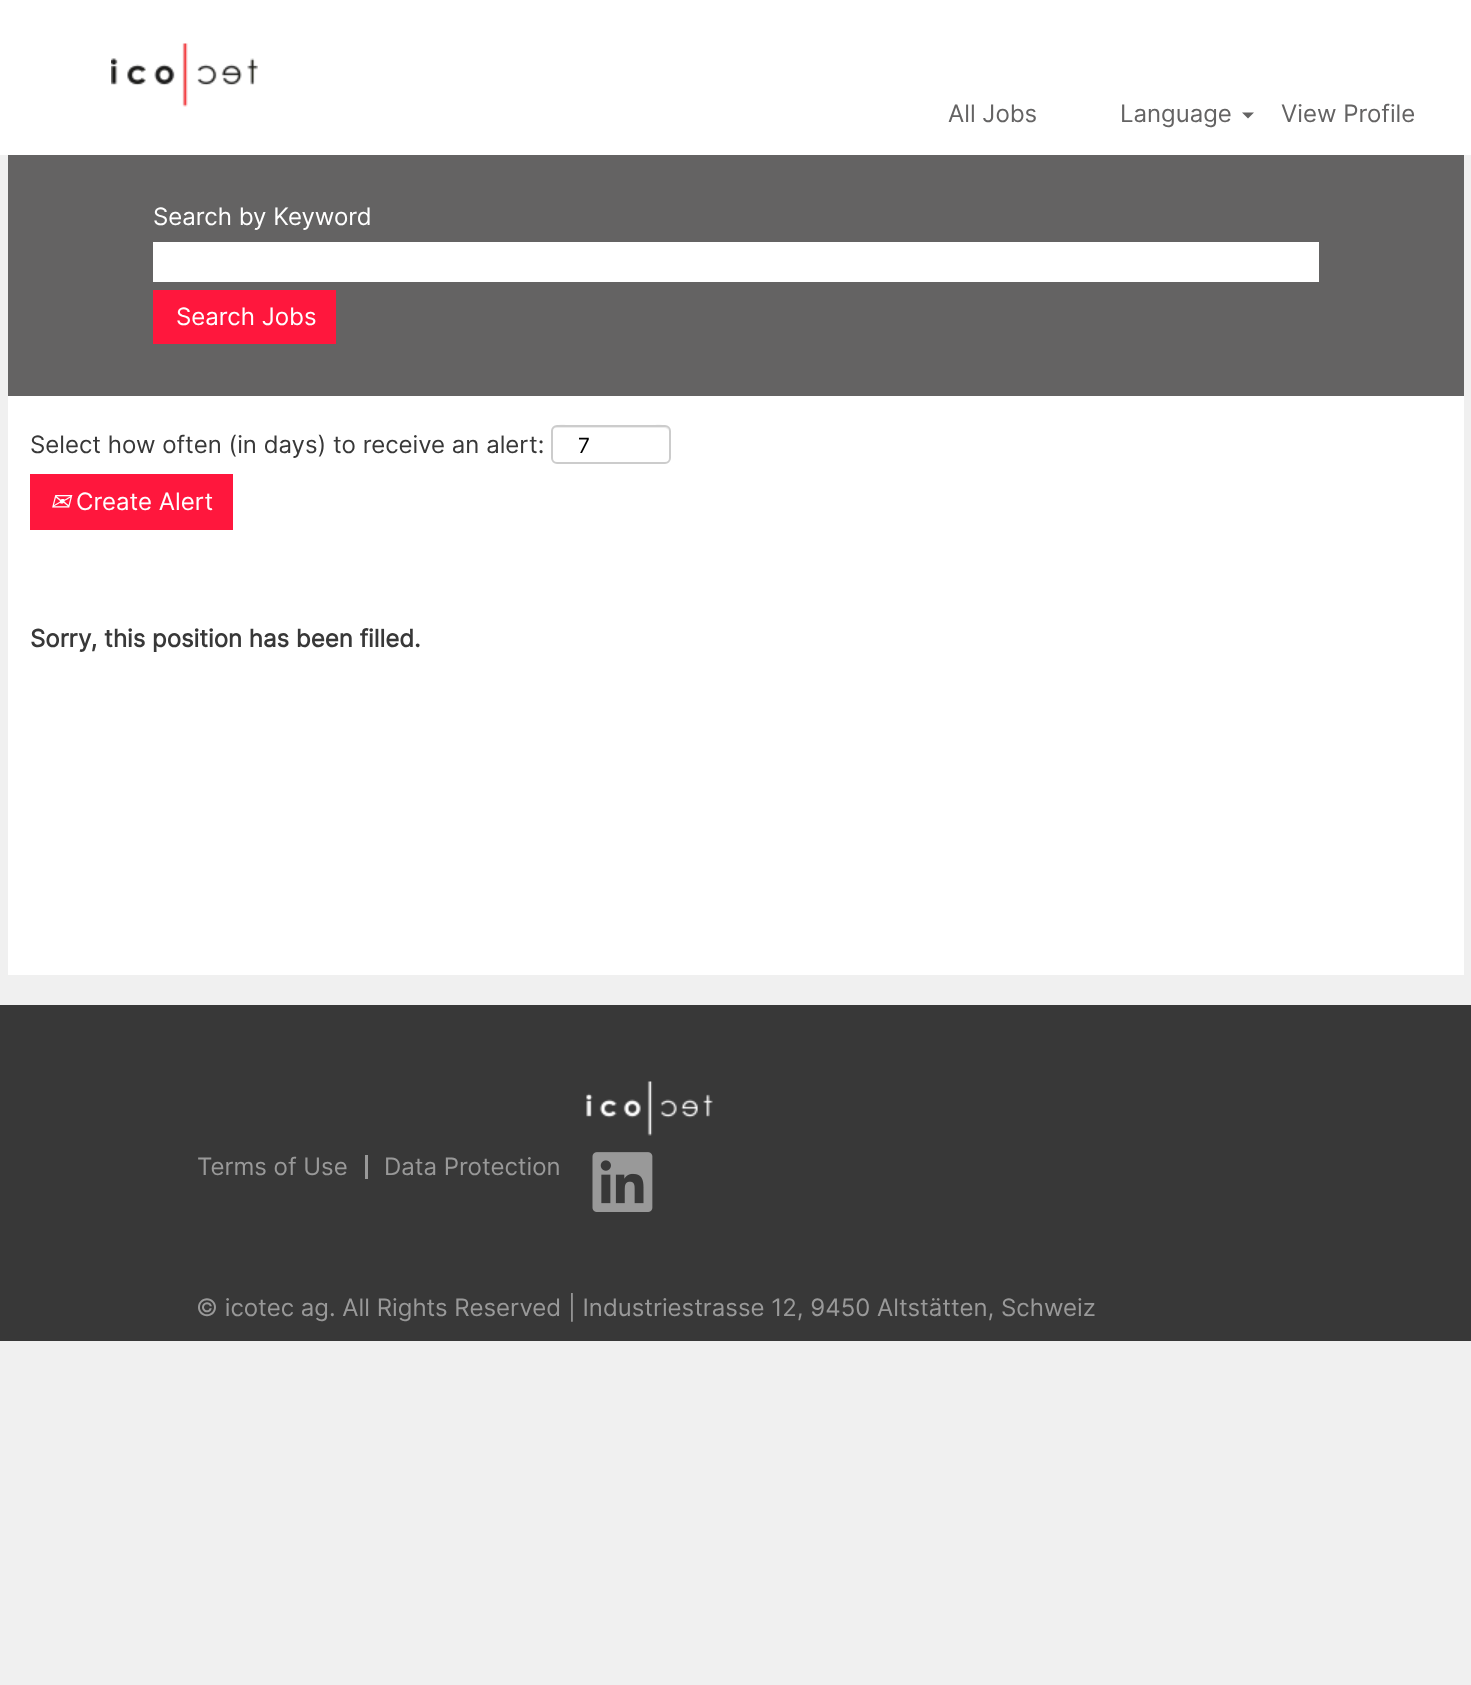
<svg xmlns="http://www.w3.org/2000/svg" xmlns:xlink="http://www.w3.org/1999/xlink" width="1471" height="1685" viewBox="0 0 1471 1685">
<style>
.cls-1{font:24px Inter;fill:#646363}
.cls-2{font:24px Inter;fill:#ffffff}
.cls-3{font:24px Inter;fill:#383838}
.cls-4{font:21px Inter;fill:#000000}
.cls-5{font:italic 24px DejaVu Sans;fill:#ffffff}
.cls-6{font:bold 24px Inter;fill:#383838}
.cls-7{font:24px Inter;fill:#999999}
</style>
<rect width="100%" height="100%" fill="#f0f0f0"/>
<rect fill="#ffffff" x="0" y="0" width="1471" height="155"/>
<image xlink:href="image0.png" x="111" y="43" width="147" height="64"/>
<path fill="#646363" d="M1242 112.5H1254L1248 118.5Z"/>
<rect fill="#ffffff" x="8" y="396" width="1456" height="579"/>
<rect fill="#646363" x="8" y="155" width="1456" height="241"/>
<rect fill="#ffffff" x="153" y="242" width="1166" height="40"/>
<rect fill="#ff173d" x="153" y="290" width="183" height="54"/>
<path fill="#ececec" d="M556 428H664C667 428 669 430 669 432C669 421 651 426 646 426H575C570 426 552 421 552 432C552 430 554 428 556 428Z"/>
<rect fill="none" stroke="#cccccc" stroke-width="2" x="552" y="426" width="118" height="37" rx="5"/>
<rect fill="#ff173d" x="30" y="474" width="203" height="56"/>
<rect fill="#383838" x="0" y="1005" width="1471" height="336"/>
<image xlink:href="image1.png" x="586" y="1081" width="127" height="55"/>
<rect fill="#999999" x="365" y="1155" width="3" height="24"/>
<image xlink:href="image2.png" x="592" y="1152" width="61" height="60"/>
<text class="cls-1" x="948" y="122">All Jobs</text>
<text class="cls-1" x="1120" y="122">Language</text>
<text class="cls-1" x="1281" y="122">View Profile</text>
<text class="cls-2" x="153" y="225">Search by Keyword</text>
<text class="cls-2" x="176" y="325">Search Jobs</text>
<text class="cls-3" x="30" y="453">Select how often (in days) to receive an alert:</text>
<text class="cls-4" x="578" y="453">7</text>
<text class="cls-5" x="50" y="510">✉</text>
<text class="cls-2" x="76" y="510">Create Alert</text>
<text class="cls-6" x="30" y="647">Sorry, this position has been filled.</text>
<text class="cls-7" x="197" y="1175">Terms of Use</text>
<text class="cls-7" x="384" y="1175">Data Protection</text>
<text class="cls-7" x="196" y="1316">© icotec ag. All Rights Reserved | Industriestrasse 12, 9450 Altstätten, Schweiz</text>
</svg>
